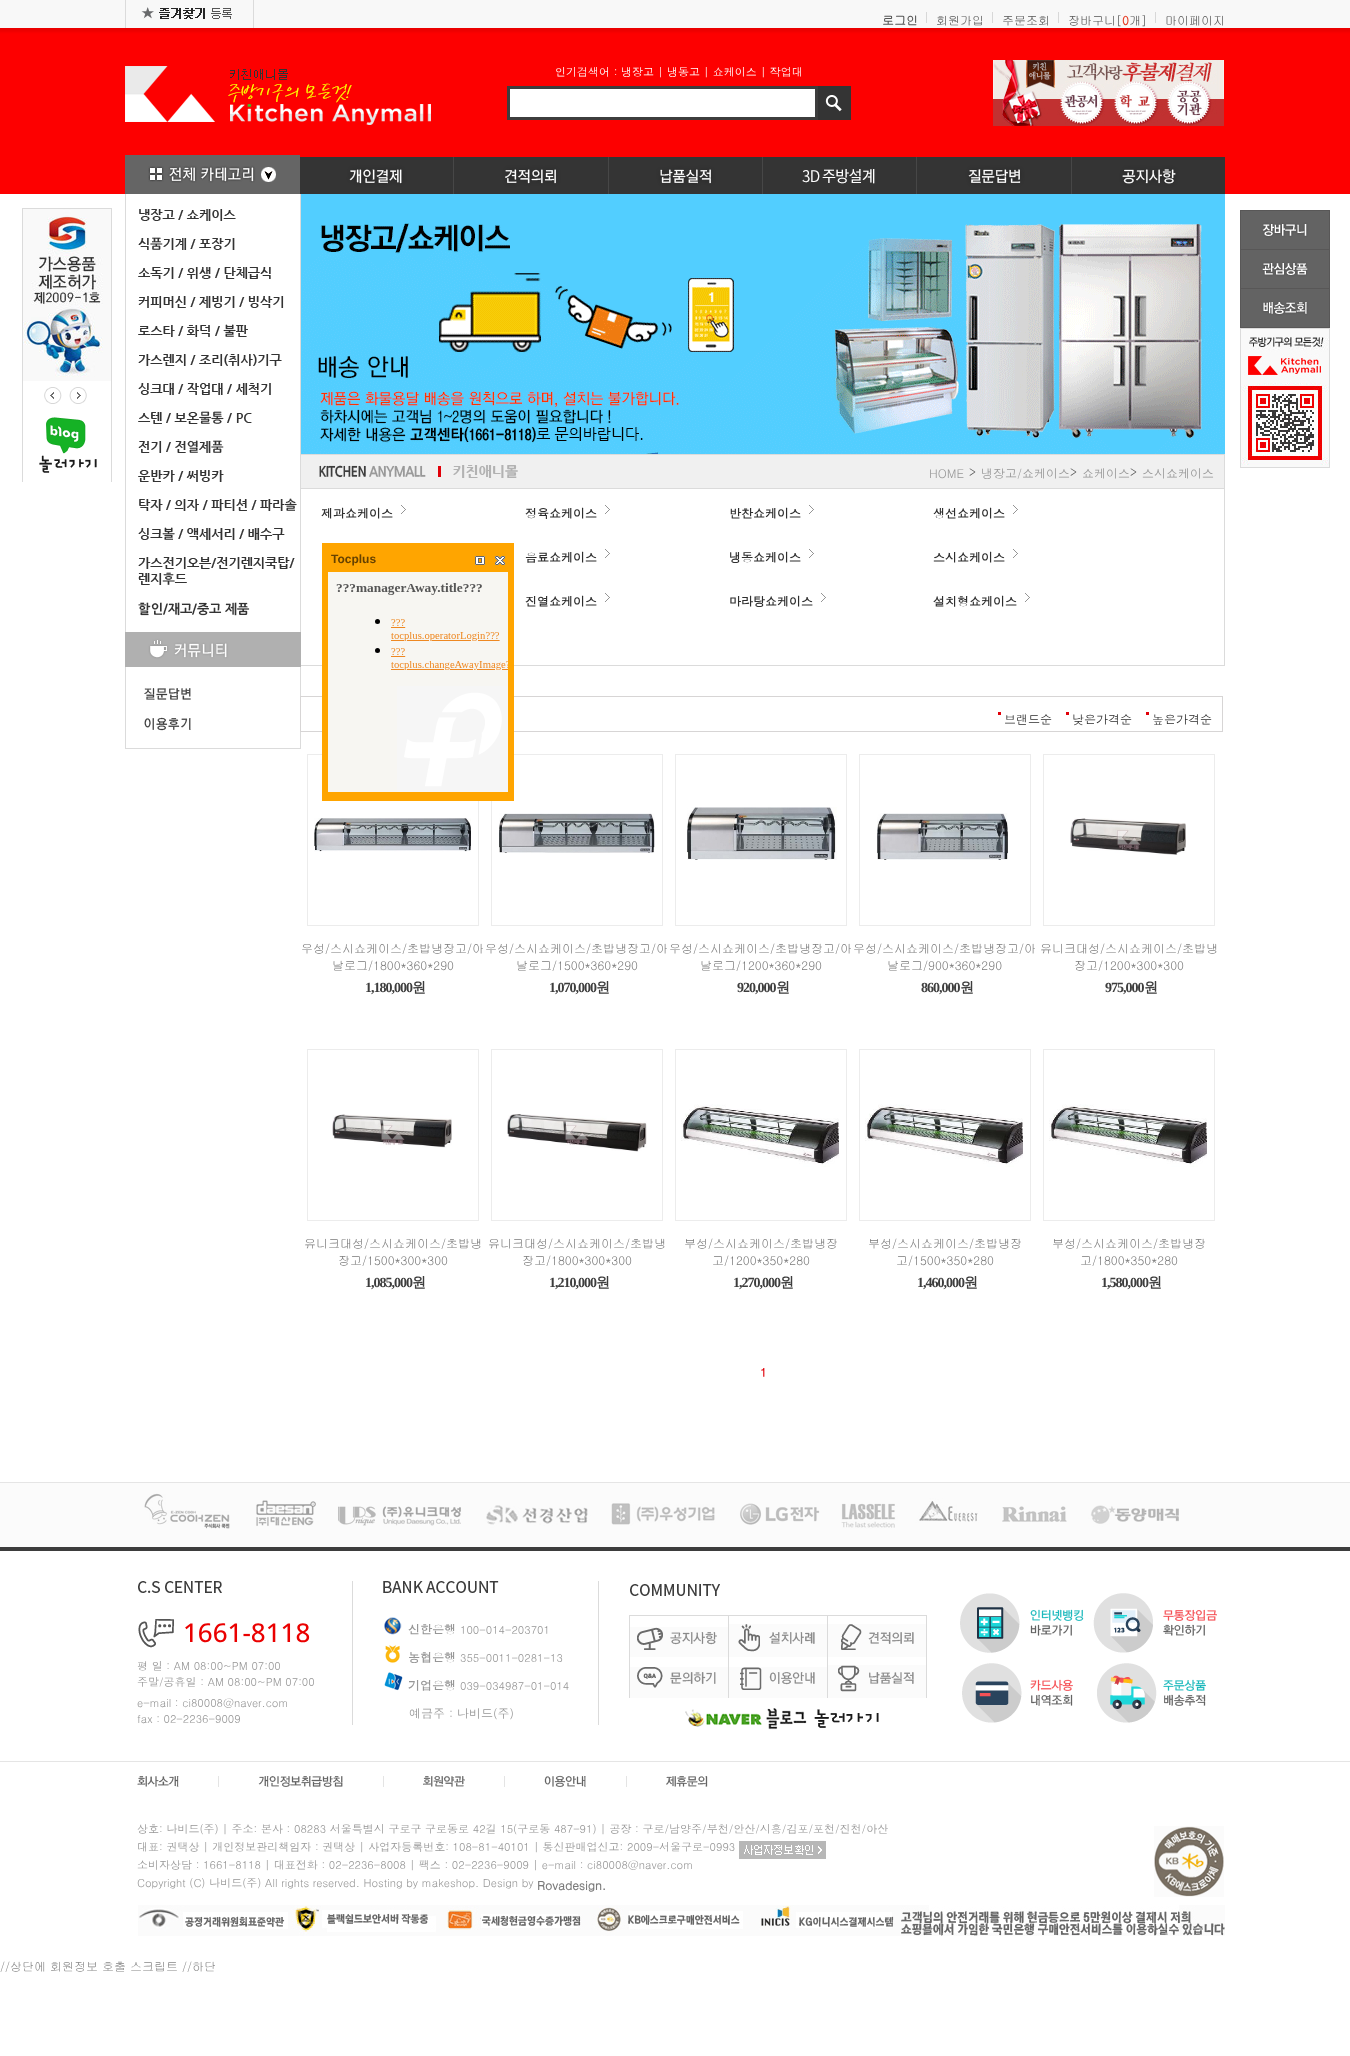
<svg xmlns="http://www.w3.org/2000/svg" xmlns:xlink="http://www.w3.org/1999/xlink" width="1350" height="2056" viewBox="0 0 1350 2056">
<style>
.cls-1{font:bold 12px Gulim;fill:#555555}
.cls-2{font:12px Gulim;fill:#555555}
.cls-3{font:bold 12px Gulim;fill:#e63d25}
.cls-4{font:11px Dotum;fill:#ffffff}
.cls-5{font:12px Dotum;fill:#979797}
.cls-6{font:11px Gulim;fill:#555555}
.cls-7{font:bold 12px Dotum;fill:#2e2e2e}
.cls-8{font:12px Dotum;fill:#2e2e2e}
.cls-9{font:12px Gulim;fill:#7b7b7b}
.cls-10{font:bold 14px Liberation Serif;letter-spacing:-1px;fill:#3d3d3d}
.cls-11{font:bold 14px WenQuanYi Zen Hei;letter-spacing:-1px;fill:#3d3d3d}
.cls-12{font:bold 12px Dotum;fill:#e10009}
.cls-13{font:500 26px Open Sans;fill:#ea0000}
.cls-14{font:11px Dotum;fill:#979797}
.cls-15{font:bold 12px Dotum;fill:#979797}
.cls-16{font:bold 12px Dotum;fill:#7b7b7b}
.cls-17{font:12px Gulim;fill:#898989}
.cls-18{font:bold 12px Liberation Sans;fill:#664200}
</style>
<rect width="100%" height="100%" fill="#ffffff"/>
<image xlink:href="image0.png" x="0" y="0" width="1350" height="194"/>
<image xlink:href="image1.png" x="125" y="0" width="1100" height="157"/>
<image xlink:href="image2.png" x="125" y="0" width="129" height="28"/>
<rect fill="#d8d8d8" x="926" y="12" width="1" height="11"/>
<rect fill="#d8d8d8" x="992" y="12" width="1" height="11"/>
<rect fill="#d8d8d8" x="1058" y="12" width="1" height="11"/>
<rect fill="#d8d8d8" x="1155" y="12" width="1" height="11"/>
<image xlink:href="image3.png" x="125" y="66" width="306" height="59"/>
<rect fill="#ffffff" stroke="#3d3d3d" stroke-width="3" x="508.5" y="87.5" width="308" height="31"/>
<image xlink:href="image4.png" x="818" y="86" width="33" height="34"/>
<image xlink:href="image5.png" x="993" y="60" width="231" height="66"/>
<image xlink:href="image6.png" x="125" y="155" width="175" height="39"/>
<image xlink:href="image7.png" x="300" y="157" width="154" height="37"/>
<image xlink:href="image8.png" x="454" y="157" width="155" height="37"/>
<image xlink:href="image9.png" x="609" y="157" width="154" height="37"/>
<image xlink:href="image10.png" x="763" y="157" width="154" height="37"/>
<image xlink:href="image11.png" x="917" y="157" width="155" height="37"/>
<image xlink:href="image12.png" x="1072" y="157" width="153" height="37"/>
<rect fill="#dbdbdb" x="300" y="194" width="1" height="555"/>
<rect fill="#dbdbdb" x="125" y="748" width="176" height="1"/>
<rect fill="#dbdbdb" x="125" y="194" width="1" height="555"/>
<image xlink:href="image13.png" x="139" y="209" width="97" height="12"/>
<image xlink:href="image14.png" x="138" y="237" width="97" height="13"/>
<image xlink:href="image15.png" x="138" y="267" width="133" height="12"/>
<image xlink:href="image16.png" x="138" y="296" width="146" height="12"/>
<image xlink:href="image17.png" x="138" y="324" width="110" height="13"/>
<image xlink:href="image18.png" x="138" y="354" width="144" height="12"/>
<image xlink:href="image19.png" x="138" y="383" width="133" height="12"/>
<image xlink:href="image20.png" x="138" y="411" width="114" height="13"/>
<image xlink:href="image21.png" x="138" y="440" width="86" height="13"/>
<image xlink:href="image22.png" x="138" y="470" width="86" height="12"/>
<image xlink:href="image23.png" x="139" y="498" width="158" height="13"/>
<image xlink:href="image24.png" x="138" y="527" width="147" height="13"/>
<image xlink:href="image25.png" x="138" y="557" width="157" height="28"/>
<image xlink:href="image26.png" x="138" y="602" width="112" height="14"/>
<image xlink:href="image27.png" x="125" y="632" width="176" height="35"/>
<image xlink:href="image28.png" x="144" y="688" width="47" height="12"/>
<image xlink:href="image29.png" x="144" y="717" width="47" height="14"/>
<rect fill="#dbdbdb" x="301" y="454" width="924" height="1"/>
<image xlink:href="image30.png" x="301" y="194" width="924" height="260"/>
<rect fill="#f0f0f0" x="301" y="455" width="923" height="33"/>
<rect fill="#dbdbdb" x="1224" y="455" width="1" height="211"/>
<rect fill="#dbdbdb" x="301" y="488" width="924" height="1"/>
<image xlink:href="image31.png" x="319" y="465" width="199" height="13"/>
<rect fill="#dbdbdb" x="301" y="665" width="924" height="1"/>
<image xlink:href="image32.png" x="401" y="505" width="5" height="9"/>
<image xlink:href="image32.png" x="605" y="505" width="5" height="9"/>
<image xlink:href="image32.png" x="809" y="505" width="5" height="9"/>
<image xlink:href="image32.png" x="1013" y="505" width="5" height="9"/>
<image xlink:href="image32.png" x="605" y="549" width="5" height="9"/>
<image xlink:href="image32.png" x="809" y="549" width="5" height="9"/>
<image xlink:href="image32.png" x="1013" y="549" width="5" height="9"/>
<image xlink:href="image32.png" x="605" y="593" width="5" height="9"/>
<image xlink:href="image32.png" x="821" y="593" width="5" height="9"/>
<image xlink:href="image32.png" x="1025" y="593" width="5" height="9"/>
<rect fill="none" stroke="#d7d5d5" x="300.5" y="696.5" width="922" height="35"/>
<rect fill="#e10009" x="998" y="712" width="3" height="3"/>
<rect fill="#e10009" x="1066" y="712" width="3" height="3"/>
<rect fill="#e10009" x="1146" y="712" width="3" height="3"/>
<rect fill="none" stroke="#ececec" x="307.5" y="754.5" width="171" height="171"/>
<image xlink:href="image33.png" x="314" y="818" width="157" height="34"/>
<rect fill="none" stroke="#ececec" x="491.5" y="754.5" width="171" height="171"/>
<image xlink:href="image34.png" x="499" y="813" width="156" height="40"/>
<rect fill="none" stroke="#ececec" x="675.5" y="754.5" width="171" height="171"/>
<image xlink:href="image35.png" x="687" y="807" width="150" height="53"/>
<rect fill="none" stroke="#ececec" x="859.5" y="754.5" width="171" height="171"/>
<image xlink:href="image36.png" x="877" y="813" width="131" height="47"/>
<rect fill="none" stroke="#ececec" x="1043.5" y="754.5" width="171" height="171"/>
<image xlink:href="image37.png" x="1070" y="818" width="116" height="37"/>
<rect fill="none" stroke="#ececec" x="307.5" y="1049.5" width="171" height="171"/>
<image xlink:href="image38.png" x="332" y="1114" width="120" height="34"/>
<rect fill="none" stroke="#ececec" x="491.5" y="1049.5" width="171" height="171"/>
<image xlink:href="image39.png" x="507" y="1114" width="140" height="38"/>
<rect fill="none" stroke="#ececec" x="675.5" y="1049.5" width="171" height="171"/>
<image xlink:href="image40.png" x="681" y="1104" width="158" height="63"/>
<rect fill="none" stroke="#ececec" x="859.5" y="1049.5" width="171" height="171"/>
<image xlink:href="image40.png" x="865" y="1104" width="158" height="63"/>
<rect fill="none" stroke="#ececec" x="1043.5" y="1049.5" width="171" height="171"/>
<image xlink:href="image41.png" x="1049" y="1104" width="158" height="63"/>
<image xlink:href="image42.png" x="0" y="1482" width="1350" height="280"/>
<image xlink:href="image43.png" x="144" y="1493" width="1035" height="36"/>
<image xlink:href="image44.png" x="138" y="1581" width="84" height="12"/>
<rect fill="#dbdbdb" x="352" y="1581" width="1" height="144"/>
<image xlink:href="image45.png" x="138" y="1619" width="36" height="29"/>
<image xlink:href="image46.png" x="383" y="1581" width="116" height="12"/>
<rect fill="#dbdbdb" x="598" y="1581" width="1" height="144"/>
<image xlink:href="image47.png" x="384" y="1617" width="18" height="18"/>
<image xlink:href="image48.png" x="385" y="1645" width="15" height="18"/>
<image xlink:href="image49.png" x="384" y="1672" width="19" height="19"/>
<image xlink:href="image50.png" x="630" y="1584" width="90" height="12"/>
<rect fill="#dbdbdb" x="629" y="1615" width="198" height="1"/>
<rect fill="#dbdbdb" x="629" y="1615" width="1" height="83"/>
<image xlink:href="image51.png" x="630" y="1627" width="98" height="30"/>
<rect fill="#dbdbdb" x="728" y="1615" width="1" height="83"/>
<image xlink:href="image52.png" x="729" y="1624" width="98" height="33"/>
<rect fill="none" stroke="#dbdbdb" x="827.5" y="1615.5" width="99" height="41"/>
<image xlink:href="image53.png" x="828" y="1624" width="98" height="33"/>
<image xlink:href="image54.png" x="630" y="1667" width="98" height="31"/>
<image xlink:href="image55.png" x="729" y="1667" width="98" height="31"/>
<rect fill="#dbdbdb" x="926" y="1657" width="1" height="41"/>
<rect fill="#dbdbdb" x="827" y="1657" width="1" height="41"/>
<image xlink:href="image56.png" x="828" y="1665" width="98" height="33"/>
<image xlink:href="image57.png" x="685" y="1708" width="194" height="22"/>
<image xlink:href="image58.png" x="960" y="1593" width="124" height="60"/>
<image xlink:href="image59.png" x="1093" y="1593" width="124" height="60"/>
<image xlink:href="image60.png" x="962" y="1663" width="111" height="60"/>
<image xlink:href="image61.png" x="1097" y="1663" width="109" height="60"/>
<image xlink:href="image62.png" x="137" y="1776" width="42" height="11"/>
<image xlink:href="image63.png" x="218" y="1776" width="125" height="11"/>
<image xlink:href="image64.png" x="383" y="1776" width="82" height="11"/>
<image xlink:href="image65.png" x="504" y="1775" width="82" height="12"/>
<image xlink:href="image66.png" x="626" y="1776" width="82" height="11"/>
<image xlink:href="image67.png" x="739" y="1841" width="87" height="18"/>
<image xlink:href="image68.png" x="1154" y="1826" width="70" height="71"/>
<image xlink:href="image69.png" x="138" y="1905" width="1087" height="31"/>
<rect fill="none" stroke="#dbdbdb" x="22.5" y="208.5" width="89" height="273"/>
<image xlink:href="image70.png" x="23" y="209" width="88" height="172"/>
<image xlink:href="image71.png" x="44" y="387" width="18" height="17"/>
<image xlink:href="image72.png" x="69" y="387" width="18" height="17"/>
<image xlink:href="image73.png" x="23" y="417" width="88" height="65"/>
<image xlink:href="image74.png" x="1240" y="210" width="90" height="40"/>
<image xlink:href="image75.png" x="1240" y="250" width="90" height="39"/>
<image xlink:href="image76.png" x="1240" y="289" width="90" height="39"/>
<rect fill="none" stroke="#dbdbdb" x="1240.5" y="328.5" width="89" height="139"/>
<image xlink:href="image77.png" x="1241" y="329" width="88" height="138"/>
<rect fill="none" stroke="#ffa500" stroke-width="2" x="323" y="544" width="190" height="256"/>
<rect fill="#ffa500" x="324" y="545" width="188" height="254"/>
<image xlink:href="image78.png" x="475" y="556" width="10" height="9"/>
<image xlink:href="image79.png" x="495" y="556" width="10" height="9"/>
<image xlink:href="image80.png" x="328" y="572" width="180" height="220"/>
<text class="cls-1" x="882" y="25">로그인</text>
<text class="cls-2" x="936" y="25">회원가입</text>
<text class="cls-2" x="1002" y="25">주문조회</text>
<text class="cls-2" x="1068" y="25">장바구니[</text>
<text class="cls-3" x="1122" y="25">0</text>
<text class="cls-2" x="1129" y="25">개]</text>
<text class="cls-2" x="1165" y="25">마이페이지</text>
<text class="cls-4" x="555" y="76">인기검색어 : 냉장고 | 냉동고 | 쇼케이스 | 작업대</text>
<text class="cls-5" x="929" y="478">HOME</text>
<text class="cls-6" x="969" y="476">&gt;</text>
<text class="cls-5" x="981" y="478">냉장고/쇼케이스</text>
<text class="cls-6" x="1070" y="476">&gt;</text>
<text class="cls-5" x="1082" y="478">쇼케이스</text>
<text class="cls-6" x="1130" y="476">&gt;</text>
<text class="cls-5" x="1142" y="478">스시쇼케이스</text>
<text class="cls-7" x="321" y="518">제과쇼케이스</text>
<text class="cls-7" x="525" y="518">정육쇼케이스</text>
<text class="cls-7" x="729" y="518">반찬쇼케이스</text>
<text class="cls-7" x="933" y="518">생선쇼케이스</text>
<text class="cls-7" x="525" y="562">음료쇼케이스</text>
<text class="cls-7" x="729" y="562">냉동쇼케이스</text>
<text class="cls-7" x="933" y="562">스시쇼케이스</text>
<text class="cls-7" x="525" y="606">진열쇼케이스</text>
<text class="cls-7" x="729" y="606">마라탕쇼케이스</text>
<text class="cls-7" x="933" y="606">설치형쇼케이스</text>
<text class="cls-8" x="1004" y="724">브랜드순</text>
<text class="cls-8" x="1072" y="724">낮은가격순</text>
<text class="cls-8" x="1152" y="724">높은가격순</text>
<text class="cls-9" x="301" y="953">우성/스시쇼케이스/초밥냉장고/아</text>
<text class="cls-9" x="332" y="970">날로그/1800*360*290</text>
<text class="cls-10" x="365" y="992">1,180,000</text>
<text class="cls-11" x="412" y="992">원</text>
<text class="cls-9" x="485" y="953">우성/스시쇼케이스/초밥냉장고/아</text>
<text class="cls-9" x="516" y="970">날로그/1500*360*290</text>
<text class="cls-10" x="549" y="992">1,070,000</text>
<text class="cls-11" x="596" y="992">원</text>
<text class="cls-9" x="669" y="953">우성/스시쇼케이스/초밥냉장고/아</text>
<text class="cls-9" x="700" y="970">날로그/1200*360*290</text>
<text class="cls-10" x="737" y="992">920,000</text>
<text class="cls-11" x="776" y="992">원</text>
<text class="cls-9" x="853" y="953">우성/스시쇼케이스/초밥냉장고/아</text>
<text class="cls-9" x="887" y="970">날로그/900*360*290</text>
<text class="cls-10" x="921" y="992">860,000</text>
<text class="cls-11" x="960" y="992">원</text>
<text class="cls-9" x="1040" y="953">유니크대성/스시쇼케이스/초밥냉</text>
<text class="cls-9" x="1074" y="970">장고/1200*300*300</text>
<text class="cls-10" x="1105" y="992">975,000</text>
<text class="cls-11" x="1144" y="992">원</text>
<text class="cls-9" x="304" y="1248">유니크대성/스시쇼케이스/초밥냉</text>
<text class="cls-9" x="338" y="1265">장고/1500*300*300</text>
<text class="cls-10" x="365" y="1287">1,085,000</text>
<text class="cls-11" x="412" y="1287">원</text>
<text class="cls-9" x="488" y="1248">유니크대성/스시쇼케이스/초밥냉</text>
<text class="cls-9" x="522" y="1265">장고/1800*300*300</text>
<text class="cls-10" x="549" y="1287">1,210,000</text>
<text class="cls-11" x="596" y="1287">원</text>
<text class="cls-9" x="684" y="1248">부성/스시쇼케이스/초밥냉장</text>
<text class="cls-9" x="712" y="1265">고/1200*350*280</text>
<text class="cls-10" x="733" y="1287">1,270,000</text>
<text class="cls-11" x="780" y="1287">원</text>
<text class="cls-9" x="868" y="1248">부성/스시쇼케이스/초밥냉장</text>
<text class="cls-9" x="896" y="1265">고/1500*350*280</text>
<text class="cls-10" x="917" y="1287">1,460,000</text>
<text class="cls-11" x="964" y="1287">원</text>
<text class="cls-9" x="1052" y="1248">부성/스시쇼케이스/초밥냉장</text>
<text class="cls-9" x="1080" y="1265">고/1800*350*280</text>
<text class="cls-10" x="1101" y="1287">1,580,000</text>
<text class="cls-11" x="1148" y="1287">원</text>
<text class="cls-12" x="760" y="1377">1</text>
<text class="cls-13" x="183" y="1642">1661-8118</text>
<text class="cls-14"><tspan x="137" y="1670">평 일 : AM 08:00~PM 07:00</tspan><tspan x="137" y="1686">주말/공휴일 : AM 08:00~PM 07:00</tspan><tspan x="137" y="1707">e-mail : ci80008@naver.com</tspan><tspan x="137" y="1723">fax : 02-2236-9009</tspan></text>
<text class="cls-15" x="408" y="1634">신한은행</text>
<text class="cls-14" x="460" y="1634">100-014-203701</text>
<text class="cls-15" x="408" y="1662">농협은행</text>
<text class="cls-14" x="460" y="1662">355-0011-0281-13</text>
<text class="cls-15" x="408" y="1690">기업은행</text>
<text class="cls-14" x="460" y="1690">039-034987-01-014</text>
<text class="cls-5" x="409" y="1718">예금주 : 나비드(주)</text>
<text class="cls-14"><tspan x="137" y="1833">상호: 나비드(주) | 주소: 본사 : 08283 서울특별시 구로구 구로동로 42길 15(구로동 487-91) | 공장 : 구로/남양주/부천/안산/시흥/김포/포천/진천/아산</tspan><tspan x="137" y="1851">대표: 권택상 | 개인정보관리책임자 : 권택상 | 사업자등록번호: 108-81-40101 | 통신판매업신고: 2009-서울구로-0993</tspan><tspan x="137" y="1869">소비자상담 : 1661-8118 | 대표전화 : 02-2236-8008 | 팩스 : 02-2236-9009 | e-mail : ci80008@naver.com</tspan><tspan x="137" y="1887">Copyright (C) 나비드(주) All rights reserved. Hosting by makeshop. Design by</tspan></text>
<text class="cls-16" x="537" y="1890">Rovadesign.</text>
<text class="cls-17" x="0" y="1971">//상단에 회원정보 호출 스크립트 //하단</text>
<text class="cls-18" x="331" y="563">Tocplus</text>
</svg>
